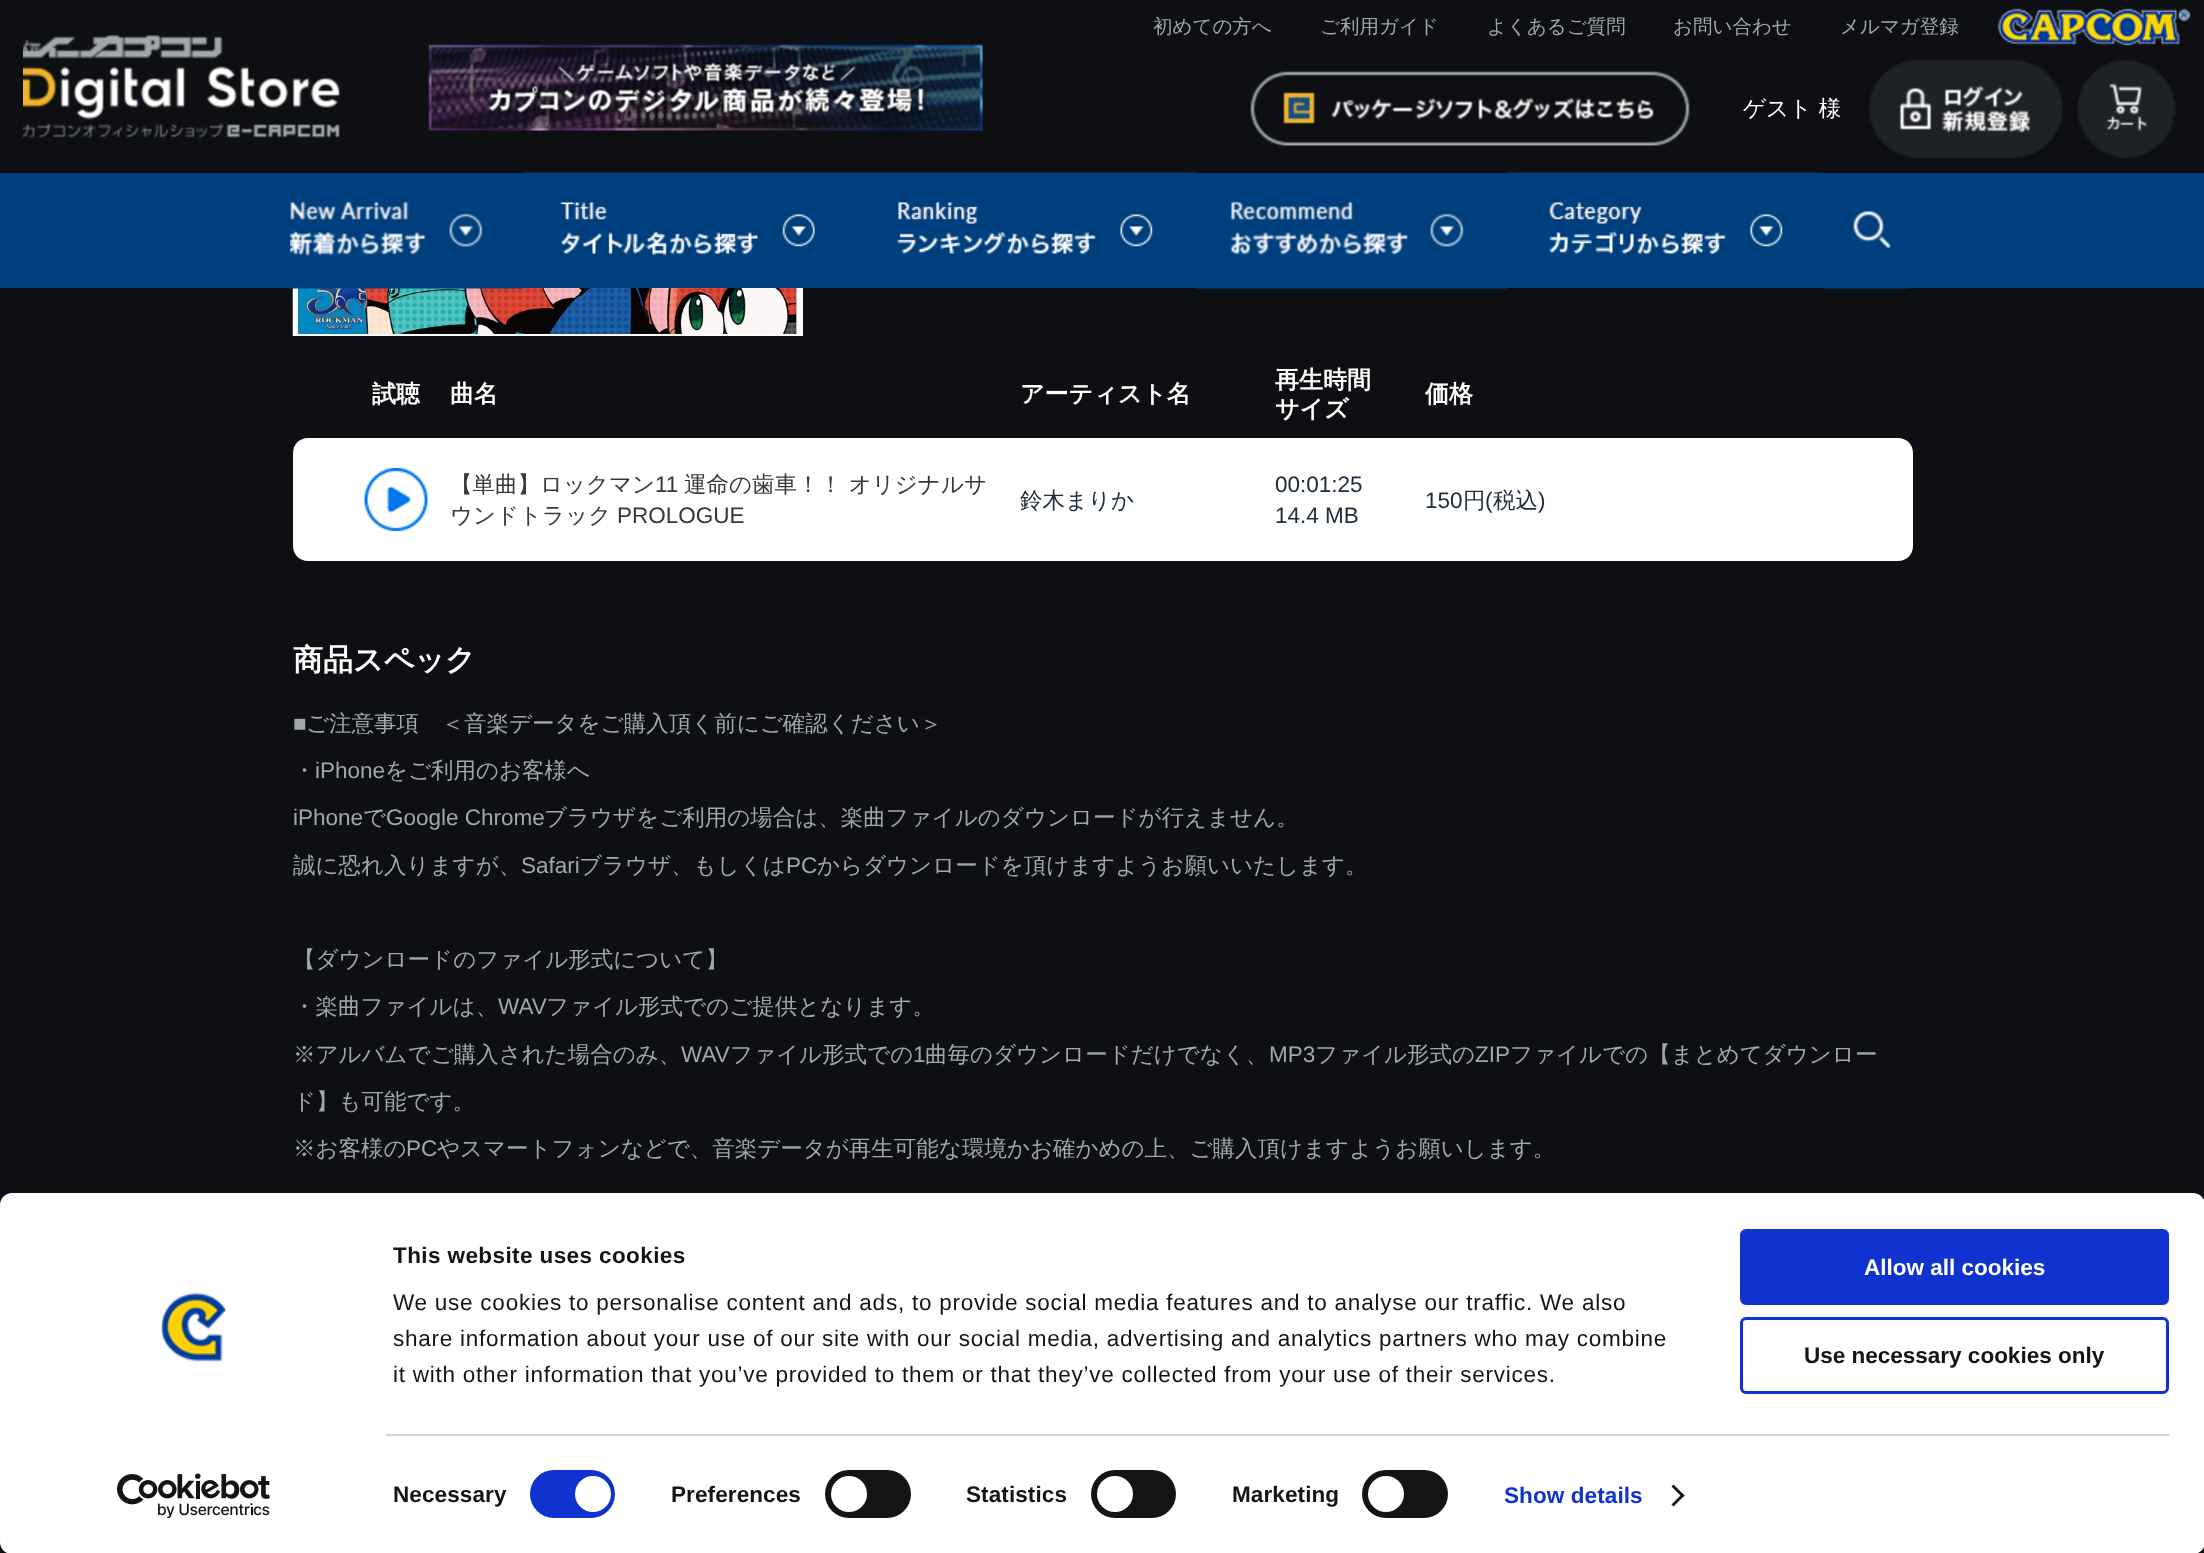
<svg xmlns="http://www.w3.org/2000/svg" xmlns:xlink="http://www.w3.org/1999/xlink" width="2204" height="1553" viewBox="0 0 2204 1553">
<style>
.cls-1{font:500 19.5px WenQuanYi Zen Hei;fill:#a0a7ad}
.cls-2{font:500 22.5px WenQuanYi Zen Hei;fill:#ffffff}
.cls-3{font:bold 24px WenQuanYi Zen Hei;fill:#ffffff}
.cls-4{font:500 22.5px WenQuanYi Zen Hei;fill:#393633}
.cls-5{font:22.5px Liberation Sans;fill:#393633}
.cls-6{font:500 22.5px WenQuanYi Zen Hei;fill:#1c2c3d}
.cls-7{font:22.5px Liberation Sans;fill:#1c2c3d}
.cls-8{font:bold 30px WenQuanYi Zen Hei;fill:#ffffff}
.cls-9{font:22.5px Liberation Sans;fill:#a0a7ad}
.cls-10{font:500 22.5px WenQuanYi Zen Hei;fill:#a0a7ad}
.cls-11{font:bold 22.5px Liberation Sans;letter-spacing:0.4px;fill:#141414}
.cls-12{font:22.5px Liberation Sans;letter-spacing:0.75px;fill:#141414}
.cls-13{font:bold 22.5px Liberation Sans;letter-spacing:0.1px;fill:#141414}
.cls-14{font:bold 22.5px Liberation Sans;letter-spacing:0.1px;fill:#1032cf}
.cls-15{font:bold 22.5px Liberation Sans;fill:#ffffff}
.cls-16{font:bold 22.5px Liberation Sans;fill:#141414}
</style>
<rect width="100%" height="100%" fill="#0d0f12"/>
<image xlink:href="image0.png" x="1997" y="8" width="194" height="38"/>
<image xlink:href="image1.png" x="23" y="35" width="317" height="104"/>
<image xlink:href="image2.png" x="428" y="44" width="555" height="87"/>
<image xlink:href="image3.png" x="1250" y="71" width="440" height="75"/>
<image xlink:href="image4.png" x="1868" y="59" width="195" height="99"/>
<image xlink:href="image5.png" x="2077" y="60" width="99" height="98"/>
<rect fill="#003f7d" x="0" y="173" width="2204" height="115"/>
<image xlink:href="image12.png" x="292" y="288" width="510" height="48"/>
<image xlink:href="image6.png" x="290" y="201" width="234" height="88"/>
<image xlink:href="image7.png" x="523" y="172" width="337" height="84"/>
<image xlink:href="image8.png" x="859" y="172" width="337" height="83"/>
<image xlink:href="image9.png" x="1195" y="201" width="313" height="88"/>
<image xlink:href="image10.png" x="1507" y="172" width="316" height="83"/>
<image xlink:href="image11.png" x="1822" y="210" width="88" height="79"/>
<rect fill="#ffffff" x="802" y="288" width="1" height="48"/>
<path fill="#ffffff" d="M308 438H357V561H308C299.5 561 293 554.5 293 546V453C293 444.5 299.5 438 308 438Z"/>
<rect fill="#ffffff" x="357" y="438" width="1256" height="123"/>
<image xlink:href="image13.png" x="364" y="468" width="64" height="63"/>
<path fill="#ffffff" d="M1613 438H1898C1906.5 438 1913 444.5 1913 453V546C1913 554.5 1906.5 561 1898 561H1613Z"/>
<rect fill="#ffffff" x="0" y="1193" width="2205" height="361" rx="12"/>
<image xlink:href="image14.png" x="161" y="1293" width="66" height="69"/>
<image xlink:href="image15.png" x="117" y="1473" width="153" height="45"/>
<rect fill="#d6d6d6" x="386" y="1434" width="1783" height="2"/>
<rect fill="#1032cf" x="530" y="1470" width="85" height="48" rx="24"/>
<circle fill="#ffffff" cx="593" cy="1494" r="18"/>
<rect fill="#141414" x="825" y="1470" width="86" height="48" rx="24"/>
<circle fill="#ffffff" cx="849" cy="1494" r="18"/>
<rect fill="#141414" x="1091" y="1470" width="85" height="48" rx="24"/>
<circle fill="#ffffff" cx="1115" cy="1494" r="18"/>
<rect fill="#141414" x="1362" y="1470" width="86" height="48" rx="24"/>
<circle fill="#ffffff" cx="1386" cy="1494" r="18"/>
<path fill="#141414" d="M1673.5 1484.5L1684.5 1495.5L1682.5 1497.5L1671.5 1486.5Z"/>
<path fill="#141414" d="M1682.5 1493.5L1684.5 1495.5L1673.5 1506.5L1671.5 1504.5Z"/>
<rect fill="#1032cf" stroke="#1032cf" stroke-width="3" x="1741.5" y="1230.5" width="426" height="73" rx="4.5"/>
<rect fill="none" stroke="#1032cf" stroke-width="3" x="1741.5" y="1318.5" width="426" height="74" rx="4.5"/>
<text class="cls-1" x="1153" y="33">初めての方へ</text>
<text class="cls-1" x="1320" y="33">ご利用ガイド</text>
<text class="cls-1" x="1487" y="33">よくあるご質問</text>
<text class="cls-1" x="1673" y="33">お問い合わせ</text>
<text class="cls-1" x="1840" y="33">メルマガ登録</text>
<text class="cls-2" x="1743" y="116">ゲスト 様</text>
<text class="cls-3" x="372" y="402">試聴</text>
<text class="cls-3" x="450" y="402">曲名</text>
<text class="cls-3" x="1020" y="402">アーティスト名</text>
<text class="cls-3"><tspan x="1275" y="388">再生時間</tspan><tspan x="1275" y="417">サイズ</tspan></text>
<text class="cls-3" x="1425" y="402">価格</text>
<text class="cls-4" x="450" y="492">【単曲】ロックマン</text>
<text class="cls-5" x="655" y="492">11</text>
<text class="cls-4" x="684" y="492">運命の歯車！！ オリジナルサ</text>
<text class="cls-4" x="450" y="523">ウンドトラック</text>
<text class="cls-5" x="617" y="523">PROLOGUE</text>
<text class="cls-6" x="1020" y="508">鈴木まりか</text>
<text class="cls-7"><tspan x="1275" y="492">00:01:25</tspan><tspan x="1275" y="523">14.4 MB</tspan></text>
<text class="cls-7" x="1425" y="508">150</text>
<text class="cls-6" x="1463" y="508">円</text>
<text class="cls-7" x="1485" y="508">(</text>
<text class="cls-6" x="1493" y="508">税込</text>
<text class="cls-7" x="1538" y="508">)</text>
<text class="cls-8" x="293" y="670">商品スペック</text>
<text class="cls-9" x="293" y="731">■</text>
<text class="cls-10" x="306" y="731">ご注意事項　＜音楽データをご購入頂く前にご確認ください＞</text>
<text class="cls-10" x="293" y="778">・</text>
<text class="cls-9" x="315" y="778">iPhone</text>
<text class="cls-10" x="385" y="778">をご利用のお客様へ</text>
<text class="cls-9" x="293" y="825">iPhone</text>
<text class="cls-10" x="363" y="825">で</text>
<text class="cls-9" x="386" y="825">Google Chrome</text>
<text class="cls-10" x="544" y="825">ブラウザをご利用の場合は、楽曲ファイルのダウンロードが行えません。</text>
<text class="cls-10" x="293" y="873">誠に恐れ入りますが、</text>
<text class="cls-9" x="521" y="873">Safari</text>
<text class="cls-10" x="579" y="873">ブラウザ、もしくは</text>
<text class="cls-9" x="786" y="873">PC</text>
<text class="cls-10" x="817" y="873">からダウンロードを頂けますようお願いいたします。</text>
<text class="cls-10" x="293" y="967">【ダウンロードのファイル形式について】</text>
<text class="cls-10" x="293" y="1014">・楽曲ファイルは、</text>
<text class="cls-9" x="498" y="1014">WAV</text>
<text class="cls-10" x="546" y="1014">ファイル形式でのご提供となります。</text>
<text class="cls-10" x="293" y="1062">※アルバムでご購入された場合のみ、</text>
<text class="cls-9" x="681" y="1062">WAV</text>
<text class="cls-10" x="730" y="1062">ファイル形式での</text>
<text class="cls-9" x="913" y="1062">1</text>
<text class="cls-10" x="925" y="1062">曲毎のダウンロードだけでなく、</text>
<text class="cls-9" x="1269" y="1062">MP3</text>
<text class="cls-10" x="1315" y="1062">ファイル形式の</text>
<text class="cls-9" x="1475" y="1062">ZIP</text>
<text class="cls-10" x="1510" y="1062">ファイルでの【まとめてダウンロー</text>
<text class="cls-10" x="293" y="1109">ド】も可能です。</text>
<text class="cls-10" x="293" y="1156">※お客様の</text>
<text class="cls-9" x="406" y="1156">PC</text>
<text class="cls-10" x="437" y="1156">やスマートフォンなどで、音楽データが再生可能な環境かお確かめの上、ご購入頂けますようお願いします。</text>
<text class="cls-11" x="393" y="1263">This website uses cookies</text>
<text class="cls-12"><tspan x="393" y="1310">We use cookies to personalise content and ads, to provide social media features and to analyse our traffic. We also</tspan><tspan x="393" y="1346">share information about your use of our site with our social media, advertising and analytics partners who may combine</tspan><tspan x="393" y="1382">it with other information that you’ve provided to them or that they’ve collected from your use of their services.</tspan></text>
<text class="cls-13" x="393" y="1502">Necessary</text>
<text class="cls-13" x="671" y="1502">Preferences</text>
<text class="cls-13" x="966" y="1502">Statistics</text>
<text class="cls-13" x="1232" y="1502">Marketing</text>
<text class="cls-14" x="1504" y="1503">Show details</text>
<text class="cls-15" x="1864" y="1275">Allow all cookies</text>
<text class="cls-16" x="1804" y="1363">Use necessary cookies only</text>
</svg>
